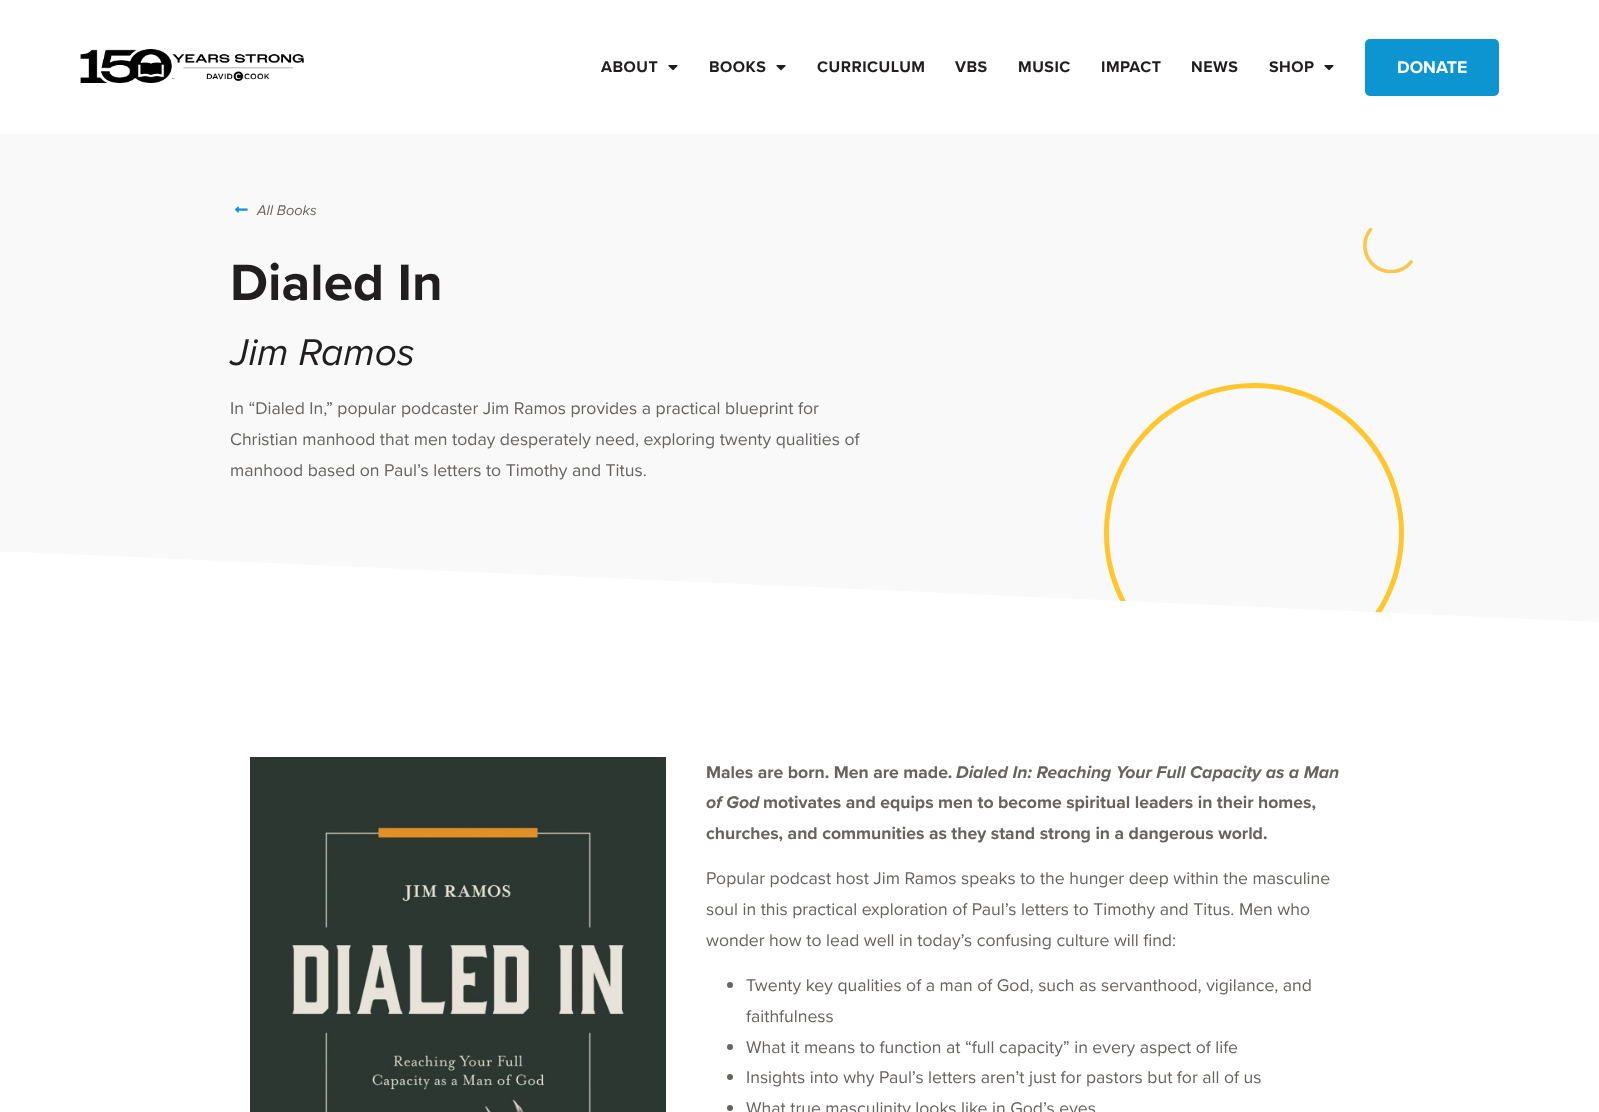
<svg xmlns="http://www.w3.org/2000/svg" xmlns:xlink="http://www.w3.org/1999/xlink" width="1599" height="1112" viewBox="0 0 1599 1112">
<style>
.cls-1{font:bold 16px Proxima Nova;letter-spacing:0.5px;fill:#211e1f}
.cls-2{font:bold 17.6px Proxima Nova;fill:#ffffff}
.cls-3{font:italic 14.5px Proxima Nova;fill:#666360}
.cls-4{font:bold 53px Proxima Nova;fill:#211e1f}
.cls-5{font:italic 38.75px Proxima Nova;fill:#211e1f}
.cls-6{font:17.6px Proxima Nova;fill:#666360}
.cls-7{font:bold 17.6px Proxima Nova;fill:#666360}
.cls-8{font:italic bold 17.6px Proxima Nova;fill:#666360}
</style>
<defs>
<clipPath id="clip1"><rect x="1104" y="383" width="300" height="243"/></clipPath>
<clipPath id="clip2"><rect x="0" y="552" width="1599" height="75"/></clipPath>
</defs>
<rect width="100%" height="100%" fill="#ffffff"/>
<image xlink:href="image0.png" x="80" y="49" width="224" height="34"/>
<image xlink:href="image1.png" x="668" y="65" width="10" height="6"/>
<image xlink:href="image1.png" x="776" y="65" width="10" height="6"/>
<image xlink:href="image1.png" x="1324" y="65" width="10" height="6"/>
<rect fill="#0d95d1" stroke="#0d95d1" stroke-width="2" x="1366" y="40" width="132" height="55" rx="4"/>
<rect fill="#f9f9f9" x="0" y="134" width="1599" height="488"/>
<image xlink:href="image2.png" x="1363" y="228" width="50" height="45"/>
<image xlink:href="image3.png" x="235" y="206" width="13" height="7"/>
<g clip-path="url(#clip1)">
<path fill="#ffc72d" d="M1254 683C1171 683 1104 616 1104 533C1104 450 1171 383 1254 383C1337 383 1404 450 1404 533C1404 616 1337 683 1254 683ZM1254 388C1174 388 1109 453 1109 533C1109 613 1174 678 1254 678C1334 678 1399 613 1399 533C1399 453 1334 388 1254 388Z"/>
</g>
<g clip-path="url(#clip2)">
<path fill="#ffffff" d="M1599 622V626H-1V551Z"/>
</g>
<image xlink:href="image4.png" x="250" y="757" width="416" height="355"/>
<circle fill="#666360" cx="730" cy="985" r="3"/>
<circle fill="#666360" cx="730" cy="1047" r="3"/>
<circle fill="#666360" cx="730" cy="1077" r="3"/>
<circle fill="#666360" cx="730" cy="1108" r="3"/>
<text class="cls-1" x="601" y="72">ABOUT</text>
<text class="cls-1" x="709" y="72">BOOKS</text>
<text class="cls-1" x="817" y="72">CURRICULUM</text>
<text class="cls-1" x="955" y="72">VBS</text>
<text class="cls-1" x="1018" y="72">MUSIC</text>
<text class="cls-1" x="1101" y="72">IMPACT</text>
<text class="cls-1" x="1191" y="72">NEWS</text>
<text class="cls-1" x="1269" y="72">SHOP</text>
<text class="cls-2" x="1397" y="73">DONATE</text>
<text class="cls-3" x="257" y="215">All Books</text>
<text class="cls-4" x="230" y="300">Dialed In</text>
<text class="cls-5" x="230" y="365">Jim Ramos</text>
<text class="cls-6"><tspan x="230" y="414">In “Dialed In,” popular podcaster Jim Ramos provides a practical blueprint for</tspan><tspan x="230" y="445">Christian manhood that men today desperately need, exploring twenty qualities of</tspan><tspan x="230" y="476">manhood based on Paul’s letters to Timothy and Titus.</tspan></text>
<text class="cls-7" x="706" y="778">Males are born. Men are made.</text>
<text class="cls-8" x="956" y="778">Dialed In: Reaching Your Full Capacity as a Man</text>
<text class="cls-8" x="706" y="808">of God</text>
<text class="cls-7" x="763" y="808">motivates and equips men to become spiritual leaders in their homes,</text>
<text class="cls-7" x="706" y="839">churches, and communities as they stand strong in a dangerous world.</text>
<text class="cls-6"><tspan x="706" y="884">Popular podcast host Jim Ramos speaks to the hunger deep within the masculine</tspan><tspan x="706" y="915">soul in this practical exploration of Paul’s letters to Timothy and Titus. Men who</tspan><tspan x="706" y="946">wonder how to lead well in today’s confusing culture will find:</tspan></text>
<text class="cls-6"><tspan x="746" y="991">Twenty key qualities of a man of God, such as servanthood, vigilance, and</tspan><tspan x="746" y="1022">faithfulness</tspan><tspan x="746" y="1053">What it means to function at “full capacity” in every aspect of life</tspan><tspan x="746" y="1083">Insights into why Paul’s letters aren’t just for pastors but for all of us</tspan><tspan x="746" y="1114">What true masculinity looks like in God’s eyes</tspan></text>
</svg>
